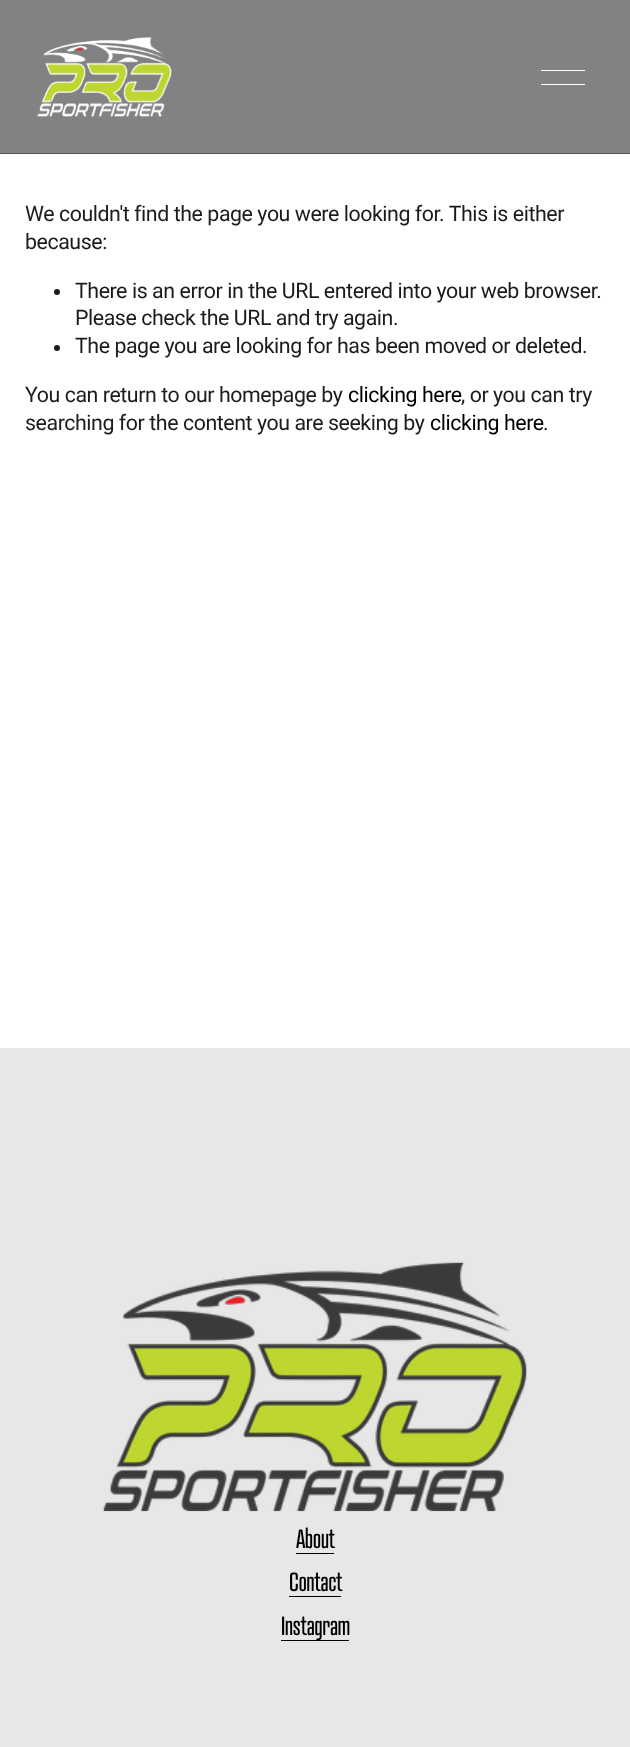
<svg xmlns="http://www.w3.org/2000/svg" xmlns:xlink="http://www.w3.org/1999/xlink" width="630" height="1747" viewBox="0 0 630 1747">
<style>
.cls-1{font:21.35px Roboto;letter-spacing:-0.43px;fill:#1c1c1c}
.cls-2{font:21.35px Roboto;letter-spacing:-0.43px;fill:#000000}
.cls-3{font:25.5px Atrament;letter-spacing:-0.5px;fill:#000000}
</style>
<rect width="100%" height="100%" fill="#ffffff"/>
<rect fill="#828282" x="0" y="0" width="630" height="153"/>
<image xlink:href="image0.png" x="37" y="37" width="135" height="80"/>
<rect fill="#ffffff" x="541" y="70" width="44" height="1"/>
<rect fill="#ffffff" x="541" y="84" width="44" height="1"/>
<rect fill="#515151" x="0" y="153" width="630" height="1"/>
<circle fill="#1c1c1c" cx="57" cy="292" r="3"/>
<circle fill="#1c1c1c" cx="57" cy="348" r="3"/>
<rect fill="#e7e7e7" x="0" y="1048" width="630" height="699"/>
<image xlink:href="image1.png" x="103" y="1262" width="424" height="250"/>
<rect fill="#000000" x="296" y="1553" width="38" height="1"/>
<rect fill="#000000" x="289" y="1596" width="52" height="1"/>
<rect fill="#000000" x="281" y="1640" width="68" height="1"/>
<text class="cls-1"><tspan x="25" y="221">We couldn't find the page you were looking for. This is either</tspan><tspan x="25" y="249">because:</tspan></text>
<text class="cls-1"><tspan x="75" y="298">There is an error in the URL entered into your web browser.</tspan><tspan x="75" y="325">Please check the URL and try again.</tspan><tspan x="75" y="353">The page you are looking for has been moved or deleted.</tspan></text>
<text class="cls-1" x="25" y="402">You can return to our homepage by</text>
<text class="cls-2" x="348" y="402">clicking here</text>
<text class="cls-1" x="461" y="402">, or you can try</text>
<text class="cls-1" x="25" y="430">searching for the content you are seeking by</text>
<text class="cls-2" x="430" y="430">clicking here</text>
<text class="cls-1" x="543" y="430">.</text>
<text class="cls-3" x="296" y="1548">About</text>
<text class="cls-3" x="289" y="1591">Contact</text>
<text class="cls-3" x="281" y="1635">Instagram</text>
</svg>
